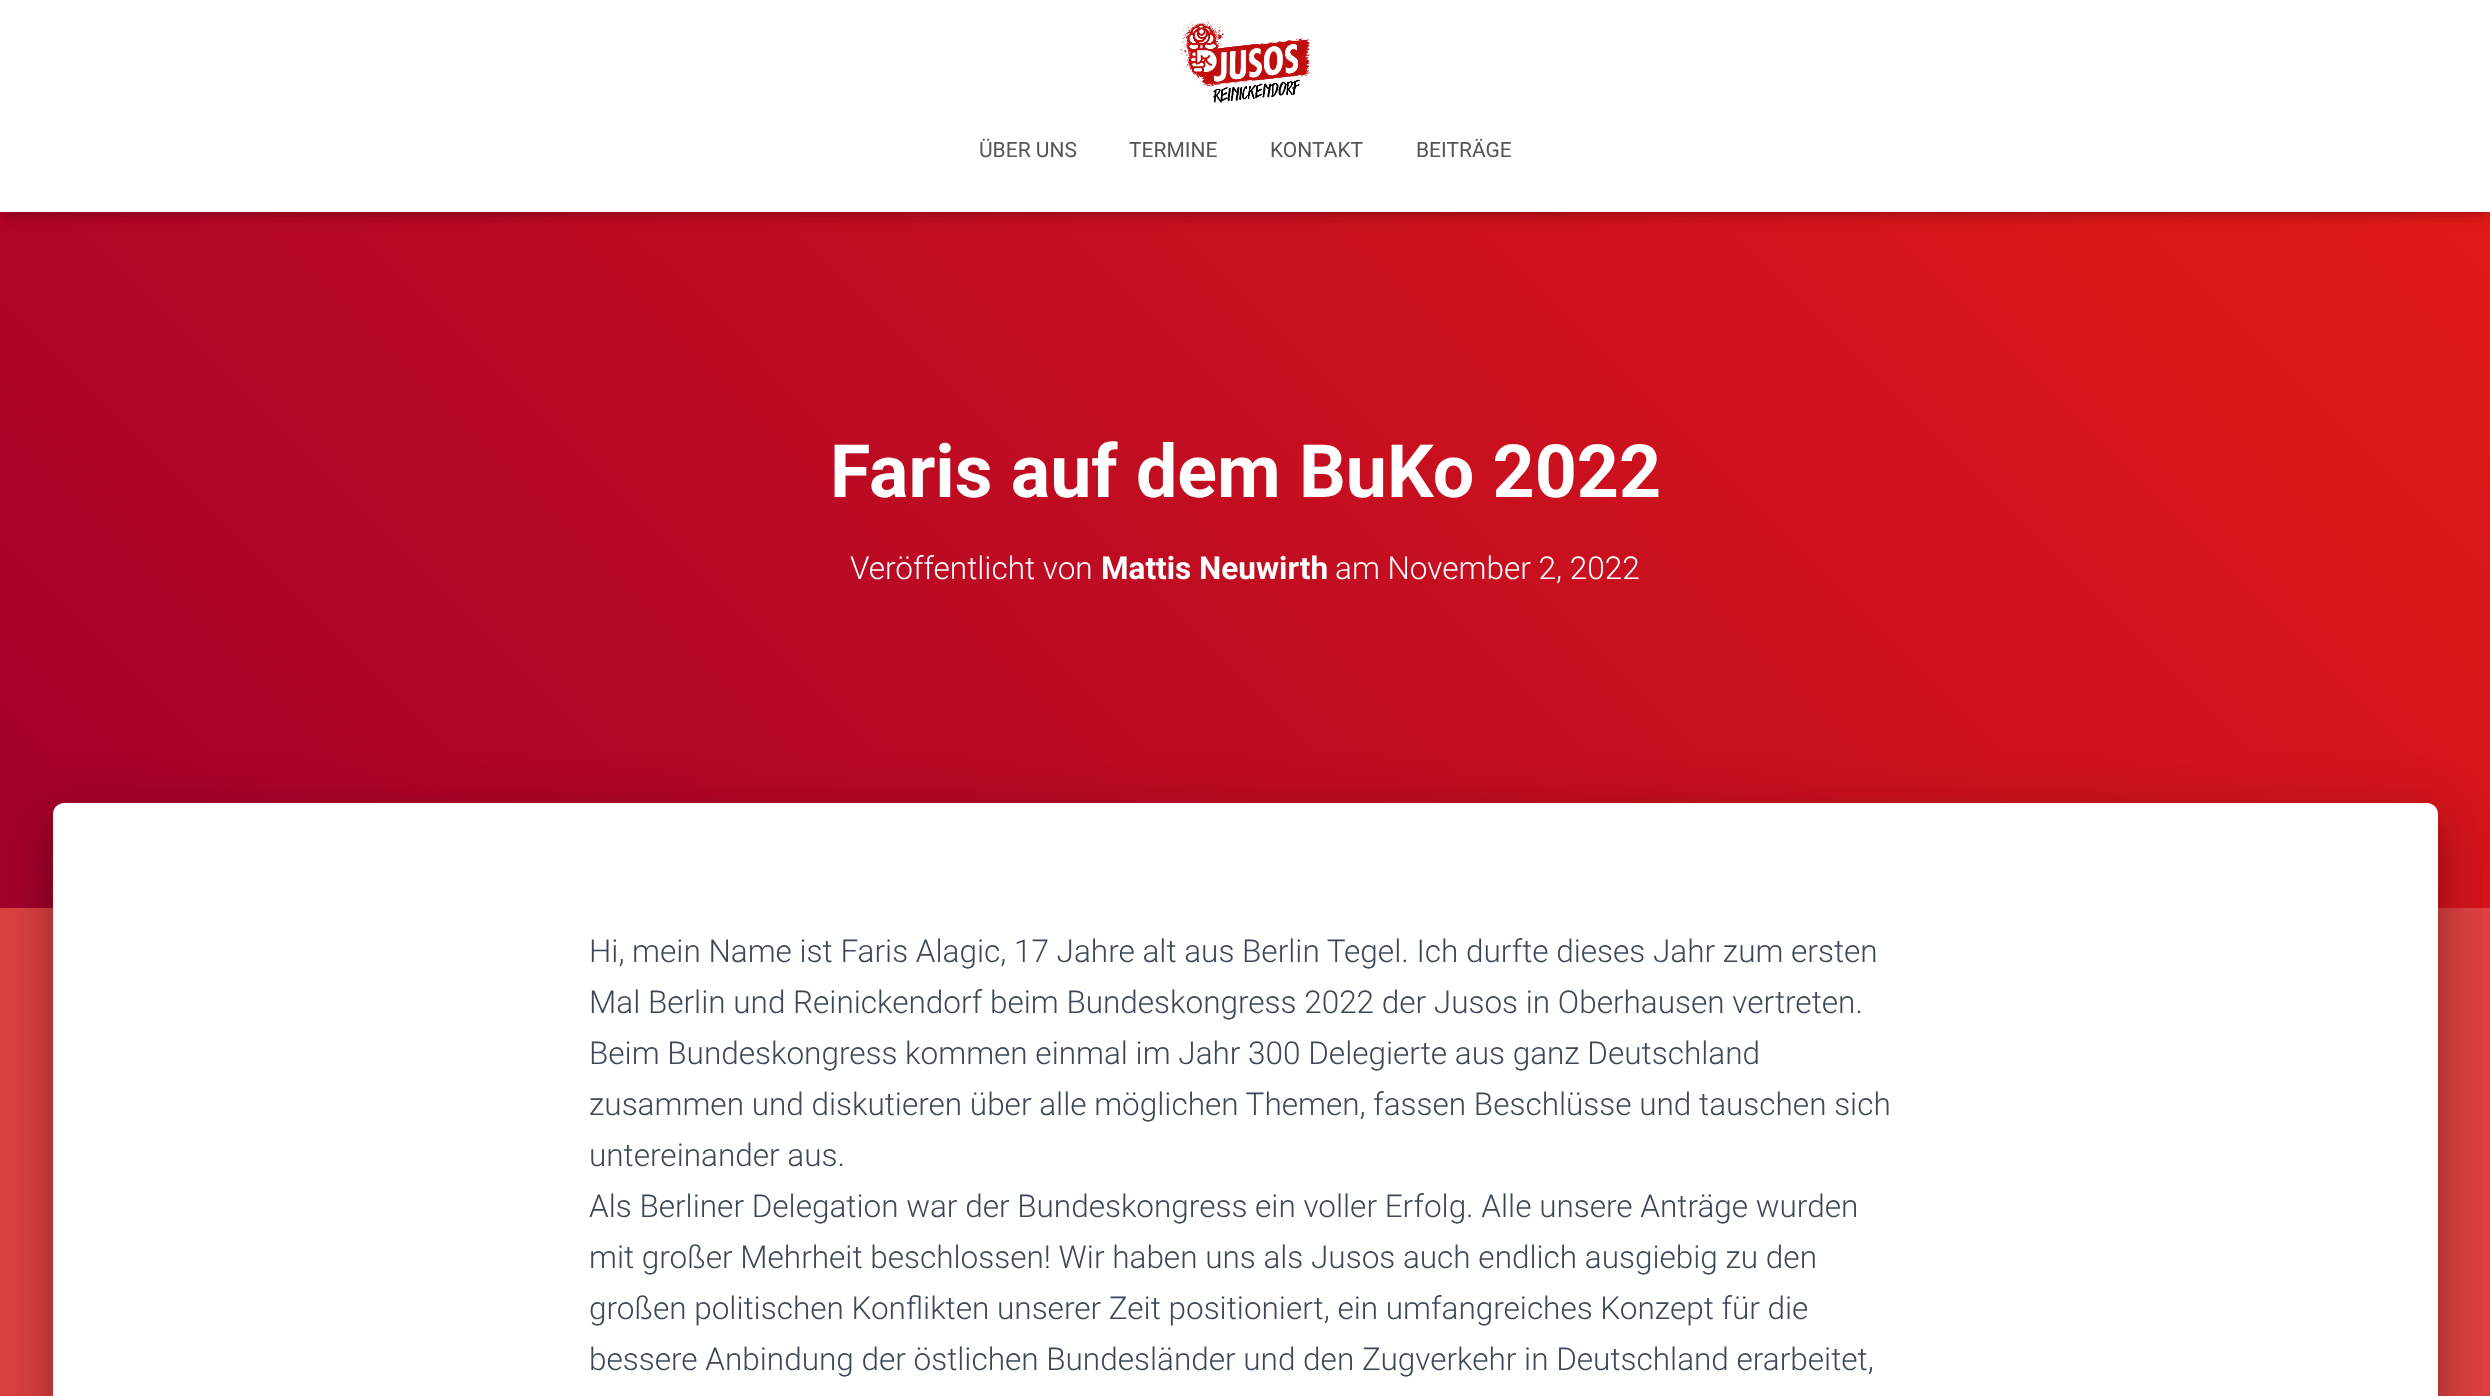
<svg xmlns="http://www.w3.org/2000/svg" xmlns:xlink="http://www.w3.org/1999/xlink" width="2490" height="1396" viewBox="0 0 2490 1396">
<style>
.cls-1{font:21px Roboto;fill:#555555}
.cls-2{font:bold 73.5px Roboto;fill:#ffffff}
.cls-3{font:300 31.5px Roboto;fill:#ffffff}
.cls-4{font:bold 31.5px Roboto;fill:#ffffff}
.cls-5{font:300 31.5px Roboto;fill:#3c4858}
</style>
<defs>
<linearGradient id="g1" gradientUnits="userSpaceOnUse" x1="396" y1="1304" x2="2095" y2="-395"><stop offset="0" stop-color="#a3002b"/><stop offset="1" stop-color="#e51c16"/></linearGradient>
</defs>
<rect width="100%" height="100%" fill="#dd4040"/>
<rect fill="url(#g1)" x="0" y="212" width="2490" height="696"/>
<rect fill="#000000" fill-opacity="0.1" filter="blur(4.5px)" x="4" y="11" width="2483" height="204"/>
<rect fill="#000000" fill-opacity="0.12" filter="blur(9px)" x="0" y="2" width="2490" height="212"/>
<rect fill="#000000" fill-opacity="0.42" filter="blur(9px)" x="11" y="12" width="2469" height="191"/>
<rect fill="#ffffff" x="0" y="0" width="2490" height="212"/>
<image xlink:href="image0.png" x="1180" y="20" width="132" height="83"/>
<rect fill="#000000" fill-opacity="0.2" filter="blur(9px)" x="61" y="826" width="2368" height="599" rx="2"/>
<rect fill="#000000" fill-opacity="0.12" filter="blur(26px)" x="44" y="805" width="2403" height="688" rx="19"/>
<rect fill="#000000" fill-opacity="0.14" filter="blur(21px)" x="49" y="828" width="2392" height="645" rx="14"/>
<path fill="#ffffff" d="M64 803H2427C2433 803 2438 808 2438 814V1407H53V814C53 808 58 803 64 803Z"/>
<text class="cls-1" x="979" y="157">ÜBER UNS</text>
<text class="cls-1" x="1129" y="157">TERMINE</text>
<text class="cls-1" x="1270" y="157">KONTAKT</text>
<text class="cls-1" x="1416" y="157">BEITRÄGE</text>
<text class="cls-2" x="830" y="497">Faris auf dem BuKo 2022</text>
<text class="cls-3" x="850" y="579">Veröffentlicht von</text>
<text class="cls-4" x="1101" y="579">Mattis Neuwirth</text>
<text class="cls-3" x="1335" y="579">am November 2, 2022</text>
<text class="cls-5"><tspan x="589" y="962">Hi, mein Name ist Faris Alagic, 17 Jahre alt aus Berlin Tegel. Ich durfte dieses Jahr zum ersten</tspan><tspan x="589" y="1013">Mal Berlin und Reinickendorf beim Bundeskongress 2022 der Jusos in Oberhausen vertreten.</tspan><tspan x="589" y="1064">Beim Bundeskongress kommen einmal im Jahr 300 Delegierte aus ganz Deutschland</tspan><tspan x="589" y="1115">zusammen und diskutieren über alle möglichen Themen, fassen Beschlüsse und tauschen sich</tspan><tspan x="589" y="1166">untereinander aus.</tspan><tspan x="589" y="1217">Als Berliner Delegation war der Bundeskongress ein voller Erfolg. Alle unsere Anträge wurden</tspan><tspan x="589" y="1268">mit großer Mehrheit beschlossen! Wir haben uns als Jusos auch endlich ausgiebig zu den</tspan><tspan x="589" y="1319">großen politischen Konflikten unserer Zeit positioniert, ein umfangreiches Konzept für die</tspan><tspan x="589" y="1370">bessere Anbindung der östlichen Bundesländer und den Zugverkehr in Deutschland erarbeitet,</tspan></text>
</svg>
